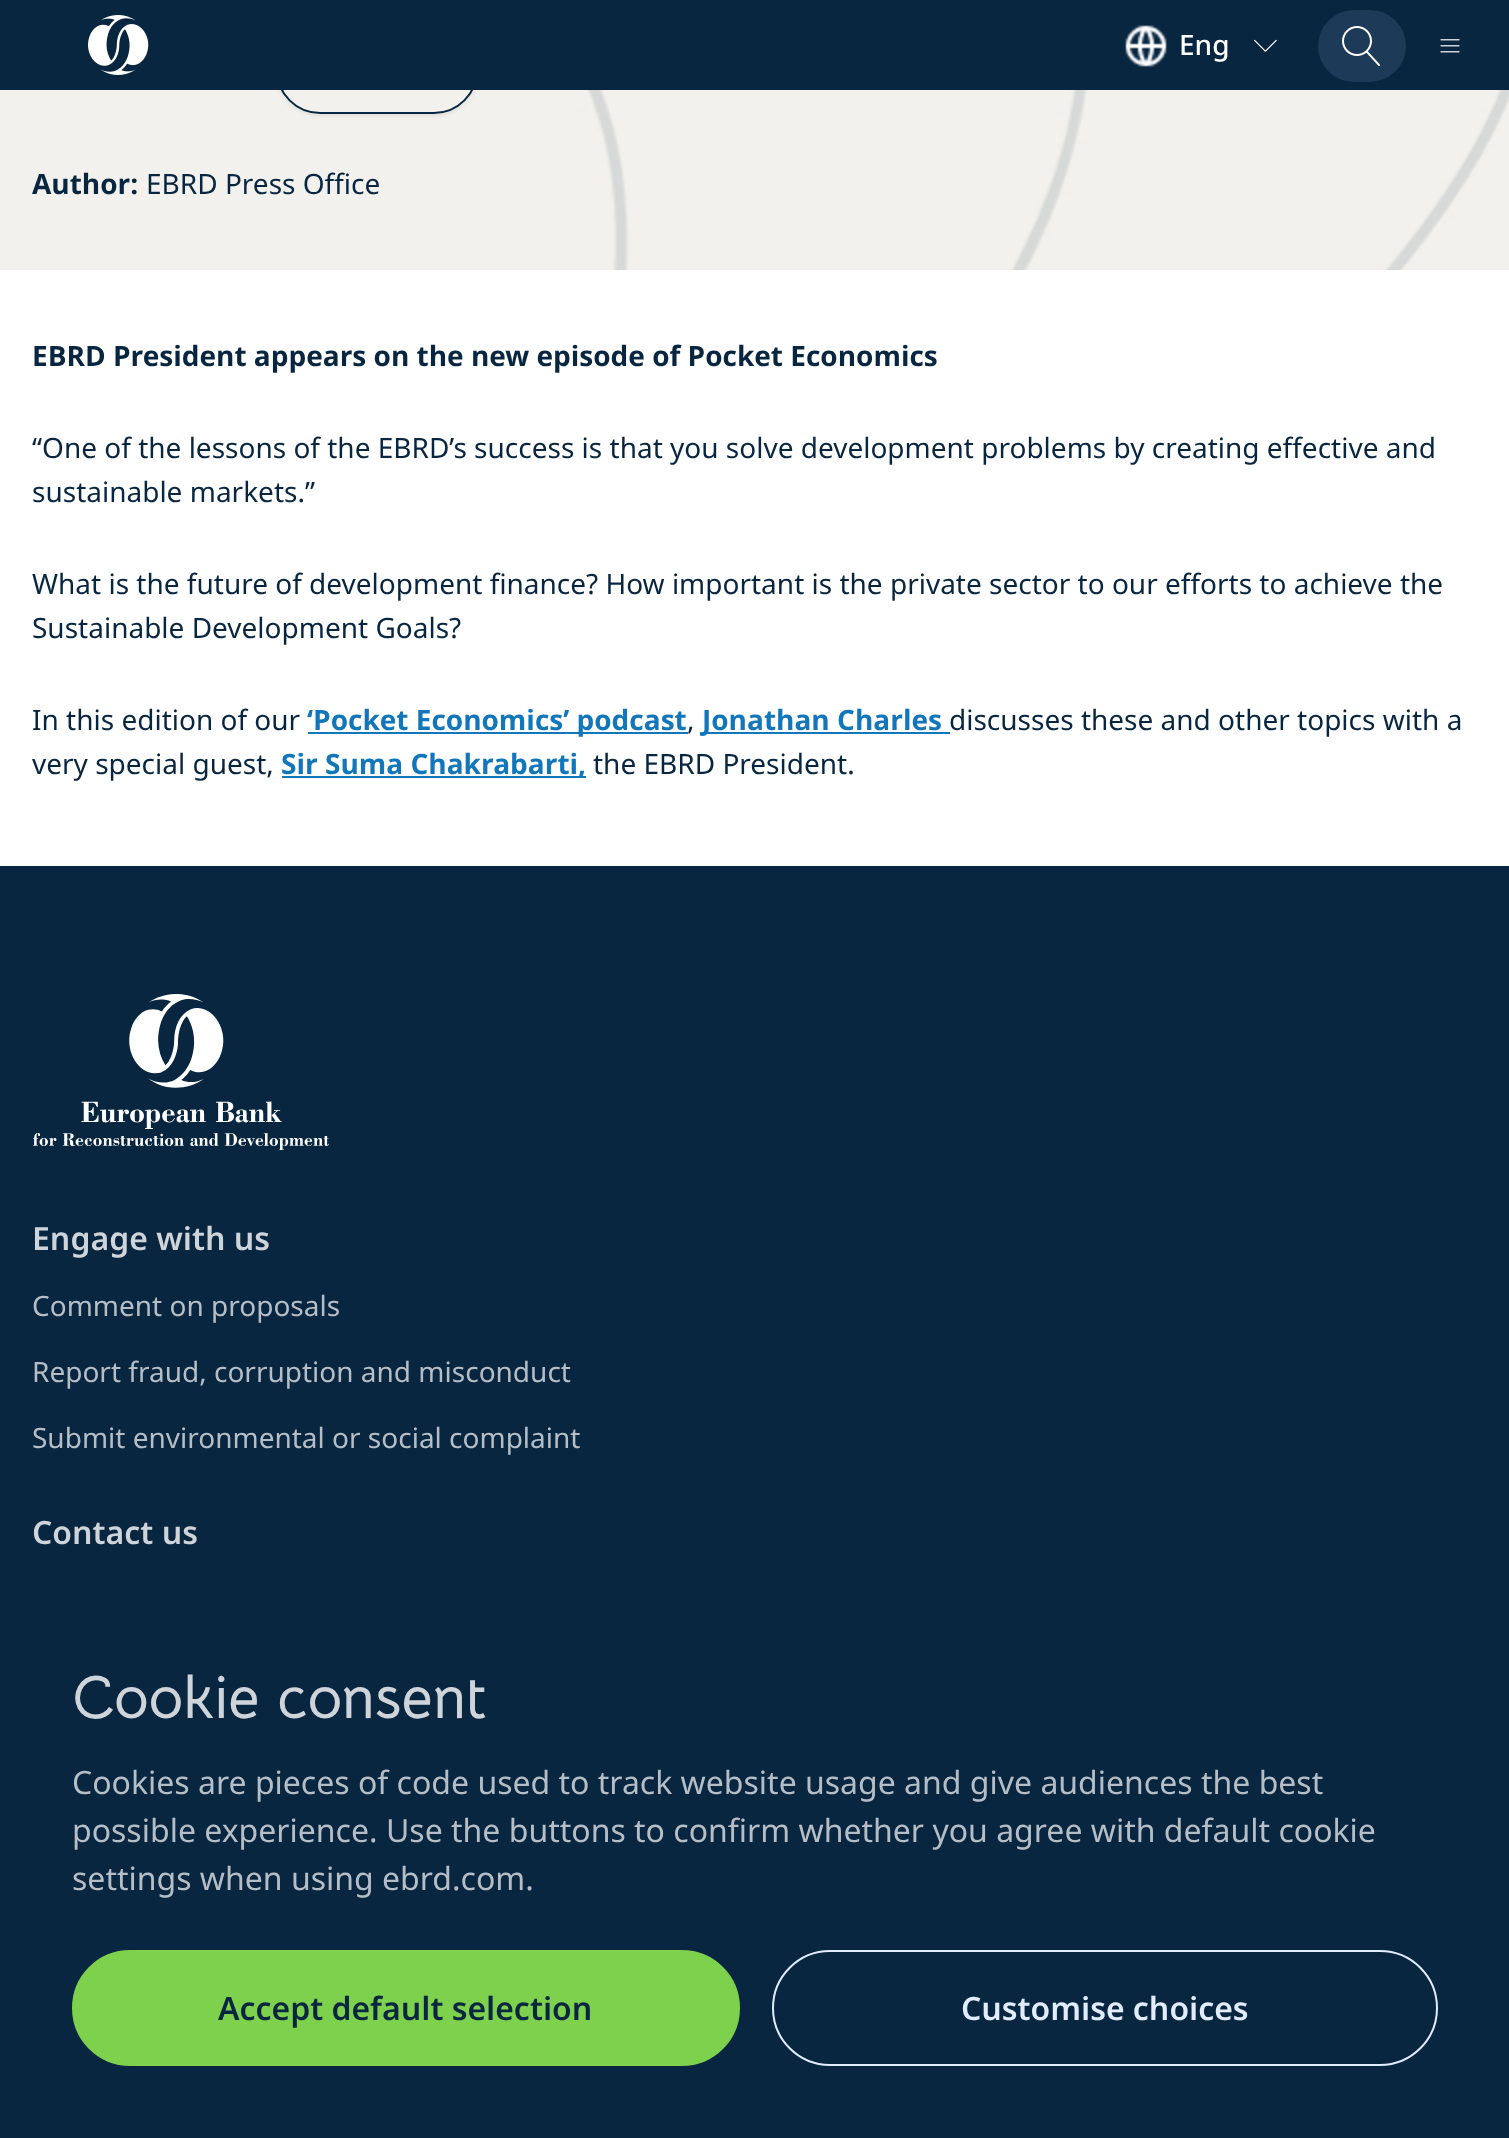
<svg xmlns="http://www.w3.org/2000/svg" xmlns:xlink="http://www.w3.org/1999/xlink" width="1509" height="2138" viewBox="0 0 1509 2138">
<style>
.cls-1{font:500 28px Noto Sans;fill:#ffffff}
.cls-2{font:bold 28px Noto Sans;fill:#082640}
.cls-3{font:28px Noto Sans;fill:#082640}
.cls-4{font:bold 28px Noto Sans;fill:#1276bb}
.cls-5{font:600 32px Noto Sans;fill:#ced4d9}
.cls-6{font:28px Noto Sans;fill:#b5bec6}
.cls-7{font:bold 60px Bellota Text;fill:#ced4d9}
.cls-8{font:32px Noto Sans;fill:#b5bec6}
.cls-9{font:600 32px Noto Sans;fill:#082640}
.cls-10{font:600 32px Noto Sans;fill:#e1edff}
</style>
<defs>
<clipPath id="clip1"><path d="M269 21H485V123H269ZM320 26H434C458.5 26 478 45.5 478 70C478 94.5 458.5 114 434 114H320C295.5 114 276 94.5 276 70C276 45.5 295.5 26 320 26Z" clip-rule="evenodd"/></clipPath>
</defs>
<rect width="100%" height="100%" fill="#ffffff"/>
<image xlink:href="image5.png" x="0" y="90" width="1509" height="180"/>
<g clip-path="url(#clip1)">
<rect fill="#1a1a1a" fill-opacity="0.08" filter="blur(2px)" x="276" y="28" width="202" height="88" rx="44"/>
</g>
<rect fill="none" stroke="#082640" stroke-width="2" x="277" y="27" width="200" height="86" rx="43"/>
<rect fill="#082640" x="0" y="0" width="1509" height="90"/>
<image xlink:href="image0.png" x="88" y="15" width="61" height="60"/>
<image xlink:href="image1.png" x="1125" y="25" width="42" height="42"/>
<image xlink:href="image2.png" x="1254" y="39" width="23" height="13"/>
<rect fill="#1d3a58" x="1318" y="10" width="88" height="72" rx="36"/>
<image xlink:href="image3.png" x="1342" y="26" width="38" height="40"/>
<image xlink:href="image4.png" x="1440" y="39" width="20" height="14"/>
<rect fill="#1276bb" x="308" y="732" width="380" height="2"/>
<rect fill="#1276bb" x="702" y="732" width="248" height="2"/>
<rect fill="#1276bb" x="282" y="776" width="304" height="2"/>
<rect fill="#082640" x="0" y="866" width="1509" height="1272"/>
<image xlink:href="image6.png" x="33" y="994" width="296" height="156"/>
<rect fill="#7dd14c" stroke="#7dd14c" stroke-width="2" x="73" y="1951" width="666" height="114" rx="57"/>
<rect fill="none" stroke="#e1edff" stroke-width="2" x="773" y="1951" width="664" height="114" rx="57"/>
<text class="cls-1" x="1179" y="55">Eng</text>
<text class="cls-2" x="32" y="194">Author:</text>
<text class="cls-3" x="146" y="194">EBRD Press Office</text>
<text class="cls-2" x="32" y="366">EBRD President appears on the new episode of Pocket Economics</text>
<text class="cls-3"><tspan x="32" y="458">“One of the lessons of the EBRD’s success is that you solve development problems by creating effective and</tspan><tspan x="32" y="502">sustainable markets.”</tspan></text>
<text class="cls-3"><tspan x="32" y="594">What is the future of development finance? How important is the private sector to our efforts to achieve the</tspan><tspan x="32" y="638">Sustainable Development Goals?</tspan></text>
<text class="cls-3" x="32" y="730">In this edition of our</text>
<text class="cls-4" x="307" y="730">‘Pocket Economics’ podcast</text>
<text class="cls-3" x="687" y="730">,</text>
<text class="cls-4" x="702" y="730">Jonathan Charles</text>
<text class="cls-3" x="949" y="730">discusses these and other topics with a</text>
<text class="cls-3" x="32" y="774">very special guest,</text>
<text class="cls-4" x="281" y="774">Sir Suma Chakrabarti,</text>
<text class="cls-3" x="593" y="774">the EBRD President.</text>
<text class="cls-5" x="32" y="1250">Engage with us</text>
<text class="cls-6" x="32" y="1316">Comment on proposals</text>
<text class="cls-6" x="32" y="1382">Report fraud, corruption and misconduct</text>
<text class="cls-6" x="32" y="1448">Submit environmental or social complaint</text>
<text class="cls-5" x="32" y="1544">Contact us</text>
<text class="cls-7" x="72" y="1718">Cookie consent</text>
<text class="cls-8"><tspan x="72" y="1794">Cookies are pieces of code used to track website usage and give audiences the best</tspan><tspan x="72" y="1842">possible experience. Use the buttons to confirm whether you agree with default cookie</tspan><tspan x="72" y="1890">settings when using ebrd.com.</tspan></text>
<text class="cls-9" x="218" y="2020">Accept default selection</text>
<text class="cls-10" x="961" y="2020">Customise choices</text>
</svg>
